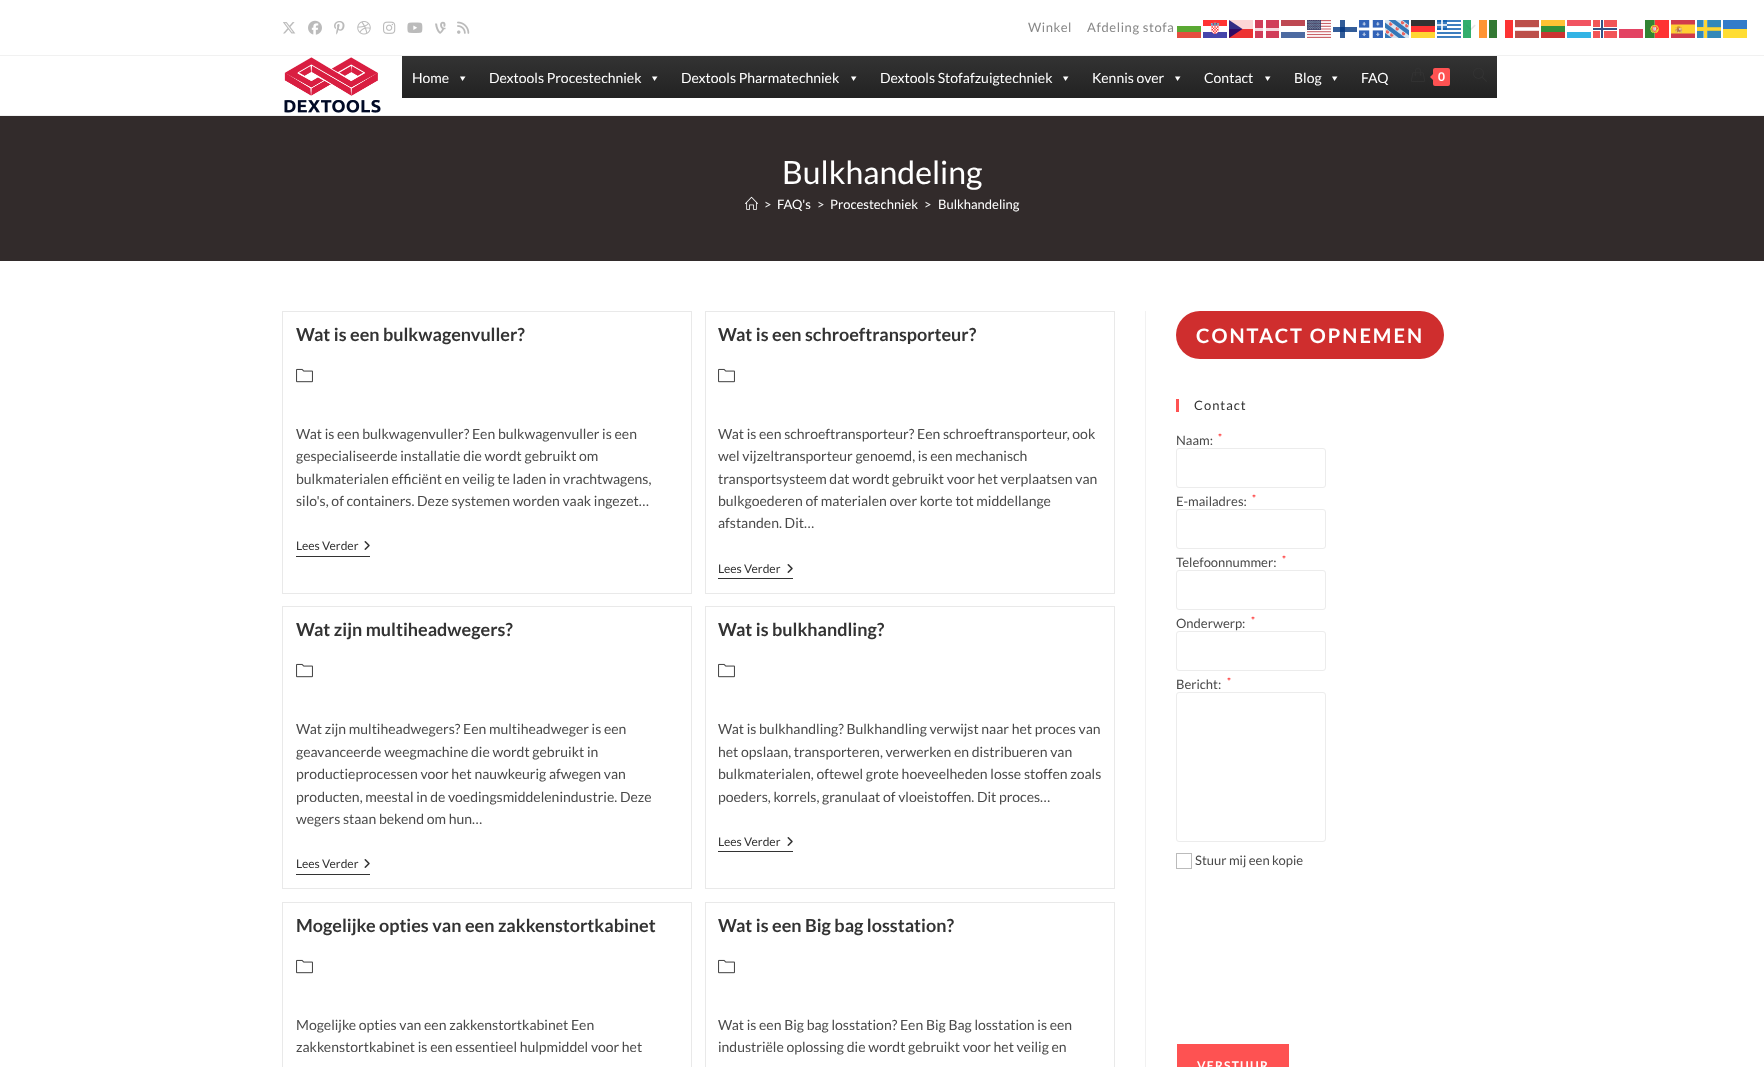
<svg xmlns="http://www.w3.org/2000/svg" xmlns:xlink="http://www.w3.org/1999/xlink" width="1764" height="1067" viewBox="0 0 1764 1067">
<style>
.cls-1{font:13px Lato;letter-spacing:0.6px;fill:#888888}
.cls-2{font:14px Lato;fill:#ffffff}
.cls-3{font:bold 12px Lato;fill:#ffffff}
.cls-4{font:32px Lato;fill:#ffffff}
.cls-5{font:13px Lato;fill:#efefef}
.cls-6{font:13px Lato;fill:#ffffff}
.cls-7{font:bold 18px Lato;fill:#333333}
.cls-8{font:14px Lato;fill:#4a4a4a}
.cls-9{font:12px Lato;fill:#333333}
.cls-10{font:bold 20px Lato;letter-spacing:2px;fill:#ffffff}
.cls-11{font:13px Lato;letter-spacing:1px;fill:#333333}
.cls-12{font:13px Lato;fill:#4a4a4a}
.cls-13{font:10px Lato;fill:#ff0000}
.cls-14{font:bold 12px Lato;letter-spacing:1.25px;fill:#ffffff}
</style>
<defs>
<linearGradient id="g1" gradientUnits="userSpaceOnUse" x1="950" y1="56" x2="950" y2="98"><stop offset="0" stop-color="#333333"/><stop offset="1" stop-color="#222222"/></linearGradient>
</defs>
<rect width="100%" height="100%" fill="#ffffff"/>
<rect fill="#f1f1f1" x="0" y="55" width="1764" height="1"/>
<image xlink:href="image0.png" x="283" y="22" width="13" height="12"/>
<image xlink:href="image1.png" x="308" y="20" width="14" height="15"/>
<image xlink:href="image2.png" x="334" y="21" width="11" height="14"/>
<image xlink:href="image3.png" x="357" y="21" width="14" height="14"/>
<image xlink:href="image4.png" x="383" y="21" width="13" height="13"/>
<image xlink:href="image5.png" x="407" y="22" width="16" height="11"/>
<image xlink:href="image6.png" x="435" y="21" width="11" height="13"/>
<image xlink:href="image7.png" x="457" y="21" width="13" height="13"/>
<image xlink:href="image8.png" x="1465" y="24" width="11" height="7"/>
<rect fill="#f1f1f1" x="0" y="115" width="1764" height="1"/>
<image xlink:href="image9.png" x="284" y="57" width="97" height="56"/>
<rect fill="url(#g1)" x="402" y="56" width="1095" height="42"/>
<path fill="#ffffff" d="M465.5 76.5L462.5 81L460 76.5Z"/>
<path fill="#ffffff" d="M657.5 76.5L654.5 81L652 76.5Z"/>
<path fill="#ffffff" d="M856.5 76.5L853.5 81L851 76.5Z"/>
<path fill="#ffffff" d="M1068.5 76.5L1065.5 81L1063 76.5Z"/>
<path fill="#ffffff" d="M1180.5 76.5L1177.5 81L1175 76.5Z"/>
<path fill="#ffffff" d="M1270.5 76.5L1267.5 81L1265 76.5Z"/>
<path fill="#ffffff" d="M1337.5 76.5L1334.5 81L1332 76.5Z"/>
<image xlink:href="image10.png" x="1411" y="68" width="14" height="14"/>
<rect fill="#fe5252" x="1433" y="68" width="17" height="18" rx="2"/>
<path fill="#fe5252" d="M1435 72V82L1430 77Z"/>
<image xlink:href="image11.png" x="1473" y="68" width="14" height="14"/>
<rect fill="#322b2b" x="0" y="116" width="1764" height="145"/>
<image xlink:href="image12.png" x="745" y="196" width="13" height="14"/>
<rect fill="#f1f1f1" x="1145" y="311" width="1" height="756"/>
<rect fill="none" stroke="#e9e9e9" x="282.5" y="311.5" width="409" height="282"/>
<image xlink:href="image13.png" x="296" y="368" width="17" height="15"/>
<rect fill="#333333" x="296" y="556" width="74" height="1"/>
<image xlink:href="image14.png" x="364" y="541" width="6" height="9"/>
<rect fill="none" stroke="#e9e9e9" x="705.5" y="311.5" width="409" height="282"/>
<image xlink:href="image13.png" x="718" y="368" width="17" height="15"/>
<rect fill="#333333" x="718" y="578" width="75" height="1"/>
<image xlink:href="image14.png" x="787" y="564" width="6" height="9"/>
<rect fill="none" stroke="#e9e9e9" x="282.5" y="606.5" width="409" height="282"/>
<image xlink:href="image13.png" x="296" y="663" width="17" height="15"/>
<rect fill="#333333" x="296" y="874" width="74" height="1"/>
<image xlink:href="image14.png" x="364" y="859" width="6" height="9"/>
<rect fill="none" stroke="#e9e9e9" x="705.5" y="606.5" width="409" height="282"/>
<image xlink:href="image13.png" x="718" y="663" width="17" height="15"/>
<rect fill="#333333" x="718" y="851" width="75" height="1"/>
<image xlink:href="image14.png" x="787" y="837" width="6" height="9"/>
<rect fill="none" stroke="#e9e9e9" x="282.5" y="902.5" width="409" height="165"/>
<image xlink:href="image13.png" x="296" y="959" width="17" height="15"/>
<rect fill="none" stroke="#e9e9e9" x="705.5" y="902.5" width="409" height="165"/>
<image xlink:href="image13.png" x="718" y="959" width="17" height="15"/>
<rect fill="#cf2e2e" x="1176" y="311" width="268" height="48" rx="24"/>
<rect fill="#fe5252" x="1176" y="399" width="3" height="13"/>
<rect fill="none" stroke="#ececec" x="1176.5" y="448.5" width="149" height="39" rx="2.5"/>
<rect fill="none" stroke="#ececec" x="1176.5" y="509.5" width="149" height="39" rx="2.5"/>
<rect fill="none" stroke="#ececec" x="1176.5" y="570.5" width="149" height="39" rx="2.5"/>
<rect fill="none" stroke="#ececec" x="1176.5" y="631.5" width="149" height="39" rx="2.5"/>
<rect fill="none" stroke="#ececec" x="1176.5" y="692.5" width="149" height="149" rx="2.5"/>
<rect fill="none" stroke="#bbbbbb" x="1176.5" y="853.5" width="15" height="15"/>
<rect fill="#fe5252" x="1177" y="1044" width="112" height="23"/>
<image xlink:href="image15.png" x="1203" y="20" width="24" height="18"/>
<rect fill="#e80000" fill-opacity="0.8" x="1229" y="20" width="24" height="18"/>
<rect fill="#ffffff" fill-opacity="0.8" x="1229" y="20" width="24" height="9"/>
<path fill="#00006f" fill-opacity="0.8" fill-rule="evenodd" d="M1229 20L1242.5 29L1229 38Z"/>
<rect fill="#c60c30" fill-opacity="0.8" x="1255" y="20" width="24" height="18"/>
<rect fill="#ffffff" x="1263" y="20" width="3" height="18"/>
<rect fill="#ae1c28" fill-opacity="0.8" x="1281" y="20" width="24" height="6"/>
<image xlink:href="image16.png" x="1307" y="20" width="24" height="18"/>
<rect fill="#003580" fill-opacity="0.8" x="1333" y="27" width="24" height="5"/>
<rect fill="#003580" fill-opacity="0.8" x="1340" y="20" width="5" height="18"/>
<image xlink:href="image17.png" x="1359" y="20" width="24" height="18"/>
<image xlink:href="image18.png" x="1385" y="20" width="24" height="18"/>
<rect fill="#000000" fill-opacity="0.8" x="1411" y="20" width="24" height="6"/>
<image xlink:href="image19.png" x="1437" y="20" width="24" height="18"/>
<rect fill="#009a49" fill-opacity="0.8" x="1463" y="20" width="8" height="18"/>
<rect fill="#ff9433" x="1479" y="20" width="8" height="18"/>
<rect fill="#337933" x="1489" y="20" width="8" height="18"/>
<rect fill="#fd3333" x="1505" y="20" width="8" height="18"/>
<image xlink:href="image20.png" x="1515" y="20" width="24" height="18"/>
<rect fill="#ffc233" x="1541" y="20" width="24" height="6"/>
<rect fill="#f15461" x="1567" y="20" width="24" height="6"/>
<rect fill="#f25557" x="1593" y="20" width="24" height="18"/>
<rect fill="#ffffff" x="1600" y="20" width="4" height="18"/>
<rect fill="#319400" fill-opacity="0.8" x="1177" y="26" width="24" height="6"/>
<rect fill="#ff0000" fill-opacity="0.8" x="1411" y="26" width="24" height="6"/>
<rect fill="#338f39" x="1541" y="26" width="24" height="6"/>
<rect fill="#ffffff" x="1593" y="27" width="24" height="4"/>
<rect fill="#335386" x="1601" y="20" width="2" height="18"/>
<image xlink:href="image21.png" x="1645" y="20" width="24" height="18"/>
<image xlink:href="image22.png" x="1671" y="20" width="24" height="18"/>
<image xlink:href="image23.png" x="1697" y="20" width="24" height="18"/>
<rect fill="#337cc9" x="1723" y="20" width="24" height="9"/>
<rect fill="#ffffff" fill-opacity="0.8" x="1255" y="28" width="24" height="3"/>
<rect fill="#de2110" fill-opacity="0.8" x="1177" y="32" width="24" height="6"/>
<rect fill="#4d6ba2" x="1281" y="32" width="24" height="6"/>
<rect fill="#ffcc00" fill-opacity="0.8" x="1411" y="32" width="24" height="6"/>
<rect fill="#cc3333" x="1541" y="32" width="24" height="6"/>
<rect fill="#33b4e5" x="1567" y="32" width="24" height="6"/>
<rect fill="#335386" x="1593" y="28" width="24" height="2"/>
<rect fill="#e34363" x="1619" y="29" width="24" height="9"/>
<rect fill="#ffdd33" x="1723" y="29" width="24" height="9"/>
<text class="cls-1" x="1028" y="32">Winkel</text>
<text class="cls-1" x="1087" y="32">Afdeling stofa</text>
<text class="cls-2" x="412" y="83">Home</text>
<text class="cls-2" x="489" y="83">Dextools Procestechniek</text>
<text class="cls-2" x="681" y="83">Dextools Pharmatechniek</text>
<text class="cls-2" x="880" y="83">Dextools Stofafzuigtechniek</text>
<text class="cls-2" x="1092" y="83">Kennis over</text>
<text class="cls-2" x="1204" y="83">Contact</text>
<text class="cls-2" x="1294" y="83">Blog</text>
<text class="cls-2" x="1361" y="83">FAQ</text>
<text class="cls-3" x="1438" y="81">0</text>
<text class="cls-4" x="782" y="184">Bulkhandeling</text>
<text class="cls-5" x="764" y="209">&gt;</text>
<text class="cls-6" x="777" y="209">FAQ's</text>
<text class="cls-5" x="817" y="209">&gt;</text>
<text class="cls-6" x="830" y="209">Procestechniek</text>
<text class="cls-5" x="924" y="209">&gt;</text>
<text class="cls-6" x="938" y="209">Bulkhandeling</text>
<text class="cls-7" x="296" y="341">Wat is een bulkwagenvuller?</text>
<text class="cls-8"><tspan x="296" y="439">Wat is een bulkwagenvuller? Een bulkwagenvuller is een</tspan><tspan x="296" y="461">gespecialiseerde installatie die wordt gebruikt om</tspan><tspan x="296" y="484">bulkmaterialen efficiënt en veilig te laden in vrachtwagens,</tspan><tspan x="296" y="506">silo's, of containers. Deze systemen worden vaak ingezet…</tspan></text>
<text class="cls-9" x="296" y="550">Lees Verder</text>
<text class="cls-7" x="718" y="341">Wat is een schroeftransporteur?</text>
<text class="cls-8"><tspan x="718" y="439">Wat is een schroeftransporteur? Een schroeftransporteur, ook</tspan><tspan x="718" y="461">wel vijzeltransporteur genoemd, is een mechanisch</tspan><tspan x="718" y="484">transportsysteem dat wordt gebruikt voor het verplaatsen van</tspan><tspan x="718" y="506">bulkgoederen of materialen over korte tot middellange</tspan><tspan x="718" y="528">afstanden. Dit…</tspan></text>
<text class="cls-9" x="718" y="573">Lees Verder</text>
<text class="cls-7" x="296" y="636">Wat zijn multiheadwegers?</text>
<text class="cls-8"><tspan x="296" y="734">Wat zijn multiheadwegers? Een multiheadweger is een</tspan><tspan x="296" y="757">geavanceerde weegmachine die wordt gebruikt in</tspan><tspan x="296" y="779">productieprocessen voor het nauwkeurig afwegen van</tspan><tspan x="296" y="802">producten, meestal in de voedingsmiddelenindustrie. Deze</tspan><tspan x="296" y="824">wegers staan bekend om hun…</tspan></text>
<text class="cls-9" x="296" y="868">Lees Verder</text>
<text class="cls-7" x="718" y="636">Wat is bulkhandling?</text>
<text class="cls-8"><tspan x="718" y="734">Wat is bulkhandling? Bulkhandling verwijst naar het proces van</tspan><tspan x="718" y="757">het opslaan, transporteren, verwerken en distribueren van</tspan><tspan x="718" y="779">bulkmaterialen, oftewel grote hoeveelheden losse stoffen zoals</tspan><tspan x="718" y="802">poeders, korrels, granulaat of vloeistoffen. Dit proces…</tspan></text>
<text class="cls-9" x="718" y="846">Lees Verder</text>
<text class="cls-7" x="296" y="932">Mogelijke opties van een zakkenstortkabinet</text>
<text class="cls-8"><tspan x="296" y="1030">Mogelijke opties van een zakkenstortkabinet Een</tspan><tspan x="296" y="1052">zakkenstortkabinet is een essentieel hulpmiddel voor het</tspan></text>
<text class="cls-7" x="718" y="932">Wat is een Big bag losstation?</text>
<text class="cls-8"><tspan x="718" y="1030">Wat is een Big bag losstation? Een Big Bag losstation is een</tspan><tspan x="718" y="1052">industriële oplossing die wordt gebruikt voor het veilig en</tspan></text>
<text class="cls-10" x="1196" y="343">CONTACT OPNEMEN</text>
<text class="cls-11" x="1194" y="410">Contact</text>
<text class="cls-12" x="1176" y="445">Naam:</text>
<text class="cls-13" x="1218" y="441">*</text>
<text class="cls-12" x="1176" y="506">E-mailadres:</text>
<text class="cls-13" x="1252" y="502">*</text>
<text class="cls-12" x="1176" y="567">Telefoonnummer:</text>
<text class="cls-13" x="1282" y="563">*</text>
<text class="cls-12" x="1176" y="628">Onderwerp:</text>
<text class="cls-13" x="1251" y="624">*</text>
<text class="cls-12" x="1176" y="689">Bericht:</text>
<text class="cls-13" x="1227" y="685">*</text>
<text class="cls-12" x="1195" y="865">Stuur mij een kopie</text>
<text class="cls-14" x="1197" y="1070">VERSTUUR</text>
</svg>
